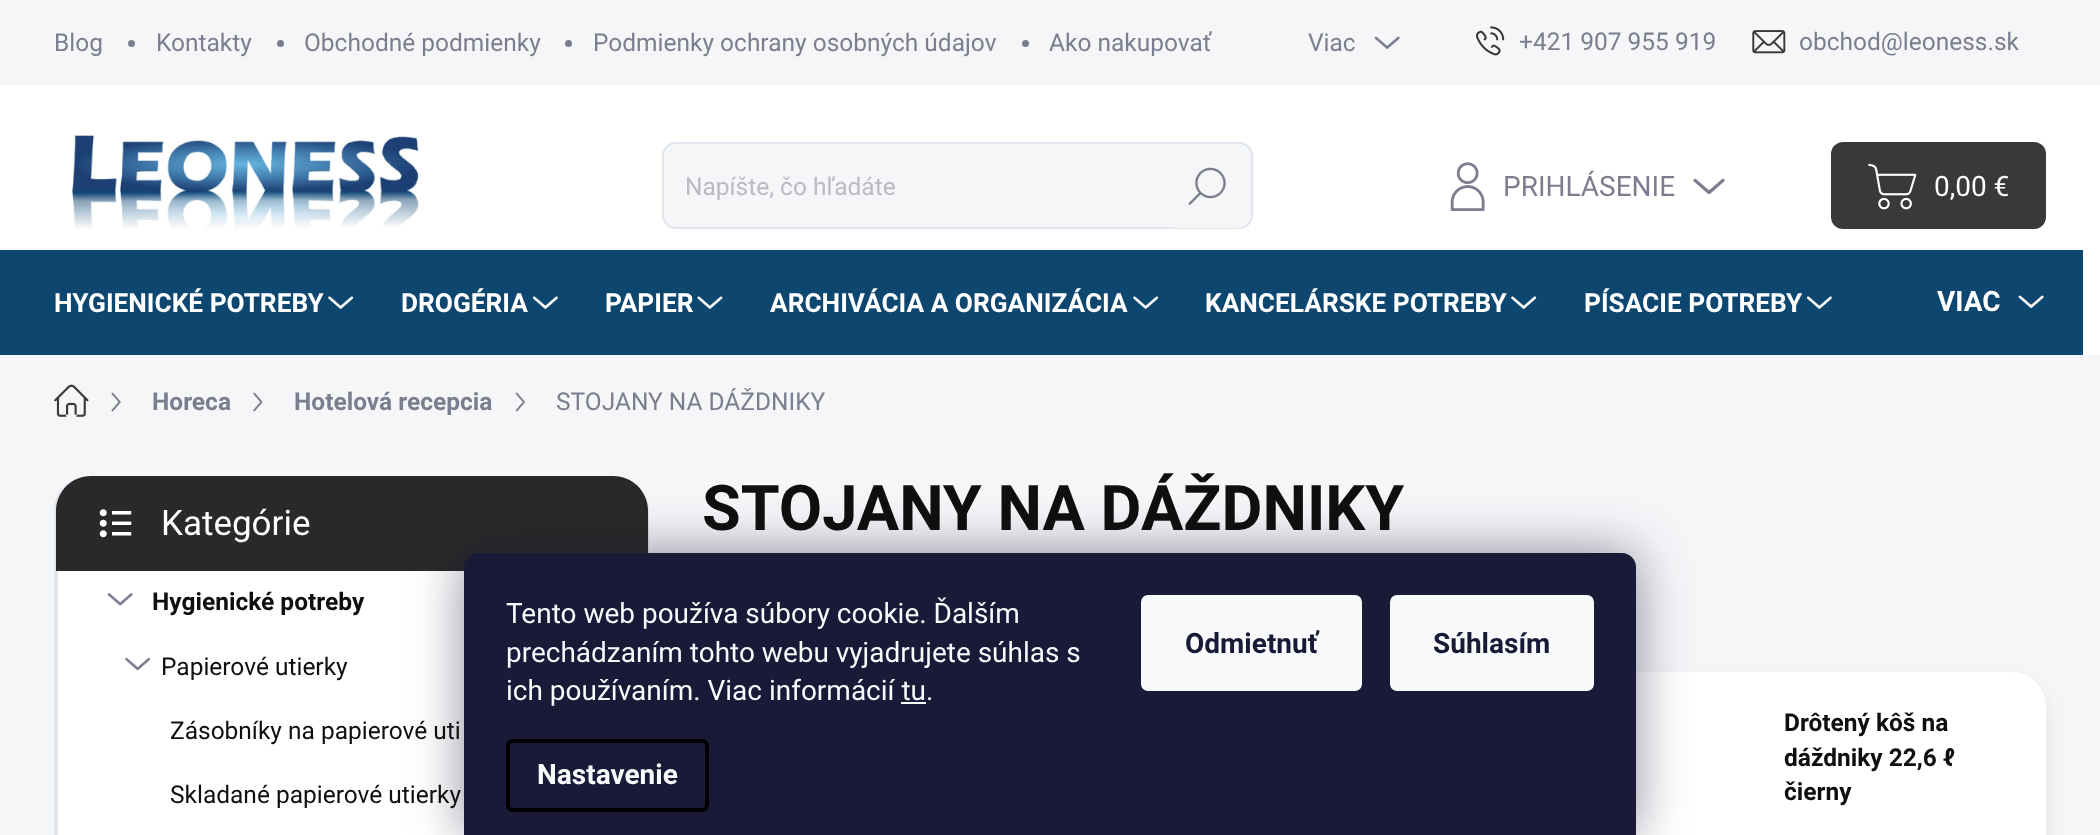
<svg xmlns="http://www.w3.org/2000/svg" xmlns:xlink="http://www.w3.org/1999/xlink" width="2100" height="835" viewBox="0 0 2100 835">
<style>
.cls-1{font:24.5px Roboto;fill:#7c7e8f}
.cls-2{font:24.5px Roboto;fill:#b9bac4}
.cls-3{font:28px Roboto;fill:#7c7e8f}
.cls-4{font:28px Roboto;fill:#ffffff}
.cls-5{font:bold 26.25px Roboto;fill:#ffffff}
.cls-6{font:bold 28px Roboto;fill:#ffffff}
.cls-7{font:bold 24.5px Roboto;fill:#7c7e8f}
.cls-8{font:35px Roboto;fill:#ffffff}
.cls-9{font:bold 24.5px Roboto;fill:#0f0f0f}
.cls-10{font:24.5px Roboto;fill:#0f0f0f}
.cls-11{font:bold 63px Roboto;fill:#0f0f0f}
.cls-12{font:28px Roboto;fill:#f8fafb}
.cls-13{font:bold 28px Roboto;fill:#f8fafb}
.cls-14{font:bold 28px Roboto;fill:#1a1937}
</style>
<rect width="100%" height="100%" fill="#f5f6f8"/>
<circle fill="#7c7e8f" cx="131.5" cy="43.5" r="3.5"/>
<circle fill="#7c7e8f" cx="280.5" cy="43.5" r="3.5"/>
<circle fill="#7c7e8f" cx="568.5" cy="43.5" r="3.5"/>
<circle fill="#7c7e8f" cx="1025.5" cy="43.5" r="3.5"/>
<image xlink:href="image0.png" x="1374" y="36" width="26" height="13"/>
<image xlink:href="image1.png" x="1475" y="26" width="30" height="30"/>
<image xlink:href="image2.png" x="1752" y="30" width="34" height="24"/>
<rect fill="#ffffff" x="0" y="86" width="2100" height="269"/>
<image xlink:href="image3.png" x="72" y="135" width="347" height="94"/>
<rect fill="#f5f6f8" stroke="#e0e5ee" stroke-width="2" x="663" y="143" width="589" height="85" rx="13"/>
<rect fill="#f5f6f8" x="1164" y="144" width="87" height="84" rx="14"/>
<image xlink:href="image4.png" x="1188" y="167" width="38" height="38"/>
<image xlink:href="image5.png" x="1450" y="162" width="35" height="49"/>
<image xlink:href="image6.png" x="1693" y="178" width="32" height="17"/>
<rect fill="#393939" x="1831" y="142" width="215" height="87" rx="12"/>
<image xlink:href="image7.png" x="1868" y="163" width="49" height="47"/>
<rect fill="#0d466f" x="0" y="250" width="2083" height="105"/>
<image xlink:href="image8.png" x="328" y="296" width="26" height="13"/>
<image xlink:href="image9.png" x="532" y="296" width="26" height="13"/>
<image xlink:href="image10.png" x="697" y="296" width="26" height="13"/>
<image xlink:href="image8.png" x="1133" y="296" width="26" height="13"/>
<image xlink:href="image8.png" x="1511" y="296" width="26" height="13"/>
<image xlink:href="image9.png" x="1806" y="296" width="26" height="13"/>
<image xlink:href="image11.png" x="2018" y="295" width="26" height="13"/>
<image xlink:href="image12.png" x="54" y="384" width="35" height="33"/>
<image xlink:href="image13.png" x="111" y="392" width="10" height="20"/>
<image xlink:href="image14.png" x="253" y="392" width="10" height="20"/>
<image xlink:href="image15.png" x="515" y="392" width="10" height="20"/>
<rect fill="#ffffff" stroke="#e0e5ee" stroke-width="4" x="56" y="478" width="591" height="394" rx="33"/>
<path fill="#292929" d="M91 476H613C632.5 476 648 491.5 648 511V571H56V511C56 491.5 71.5 476 91 476Z"/>
<image xlink:href="image16.png" x="99" y="509" width="33" height="29"/>
<image xlink:href="image17.png" x="107" y="593" width="26" height="13"/>
<image xlink:href="image18.png" x="125" y="657" width="26" height="14"/>
<rect fill="#000000" fill-opacity="0.08" filter="blur(10.5px)" x="1610" y="683" width="436" height="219" rx="35"/>
<rect fill="#ffffff" x="1610" y="672" width="436" height="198" rx="35"/>
<rect fill="#1b1939" fill-opacity="0.5" filter="blur(26px)" x="464" y="553" width="1172" height="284" rx="14"/>
<path fill="#1a1937" d="M478 553H1622C1629.5 553 1636 559.5 1636 567V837H464V567C464 559.5 470.5 553 478 553Z"/>
<rect fill="#f8fafb" x="901" y="702" width="25" height="2"/>
<rect fill="none" stroke="#000000" stroke-width="4" x="508" y="741" width="199" height="69" rx="5"/>
<rect fill="#f8fafb" x="1141" y="595" width="221" height="96" rx="7"/>
<rect fill="#f8fafb" x="1390" y="595" width="204" height="96" rx="7"/>
<text class="cls-1" x="54" y="51">Blog</text>
<text class="cls-1" x="156" y="51">Kontakty</text>
<text class="cls-1" x="304" y="51">Obchodné podmienky</text>
<text class="cls-1" x="593" y="51">Podmienky ochrany osobných údajov</text>
<text class="cls-1" x="1049" y="51">Ako nakupovať</text>
<text class="cls-1" x="1308" y="51">Viac</text>
<text class="cls-1" x="1519" y="50">+421 907 955 919</text>
<text class="cls-1" x="1799" y="50">obchod@leoness.sk</text>
<text class="cls-2" x="685" y="195">Napíšte, čo hľadáte</text>
<text class="cls-3" x="1503" y="196">PRIHLÁSENIE</text>
<text class="cls-4" x="1934" y="196">0,00 €</text>
<text class="cls-5" x="54" y="312">HYGIENICKÉ POTREBY</text>
<text class="cls-5" x="401" y="312">DROGÉRIA</text>
<text class="cls-5" x="605" y="312">PAPIER</text>
<text class="cls-5" x="770" y="312">ARCHIVÁCIA A ORGANIZÁCIA</text>
<text class="cls-5" x="1205" y="312">KANCELÁRSKE POTREBY</text>
<text class="cls-5" x="1584" y="312">PÍSACIE POTREBY</text>
<text class="cls-6" x="1937" y="311">VIAC</text>
<text class="cls-7" x="152" y="410">Horeca</text>
<text class="cls-7" x="294" y="410">Hotelová recepcia</text>
<text class="cls-1" x="556" y="410">STOJANY NA DÁŽDNIKY</text>
<text class="cls-8" x="161" y="535">Kategórie</text>
<text class="cls-9" x="152" y="610">Hygienické potreby</text>
<text class="cls-10" x="161" y="675">Papierové utierky</text>
<text class="cls-10" x="170" y="739">Zásobníky na papierové uti</text>
<text class="cls-10" x="170" y="803">Skladané papierové utierky</text>
<text class="cls-11" x="702" y="530">STOJANY NA DÁŽDNIKY</text>
<text class="cls-9"><tspan x="1784" y="731">Drôtený kôš na</tspan><tspan x="1784" y="766">dáždniky 22,6 ℓ</tspan><tspan x="1784" y="800">čierny</tspan></text>
<text class="cls-12"><tspan x="506" y="623">Tento web používa súbory cookie. Ďalším</tspan><tspan x="506" y="662">prechádzaním tohto webu vyjadrujete súhlas s</tspan><tspan x="506" y="700">ich používaním. Viac informácií tu.</tspan></text>
<text class="cls-13" x="537" y="784">Nastavenie</text>
<text class="cls-14" x="1185" y="653">Odmietnuť</text>
<text class="cls-14" x="1433" y="653">Súhlasím</text>
</svg>
